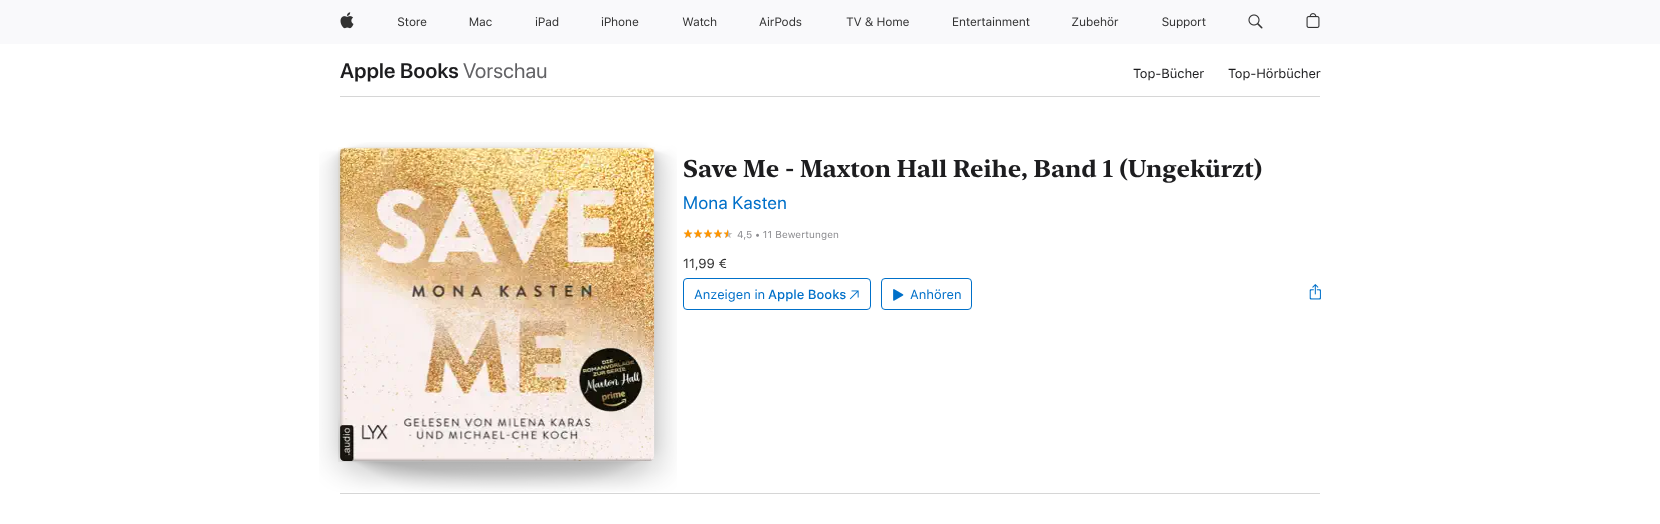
<svg xmlns="http://www.w3.org/2000/svg" xmlns:xlink="http://www.w3.org/1999/xlink" width="1660" height="524" viewBox="0 0 1660 524">
<style>
.cls-1{font:600 21px SF Pro Display;letter-spacing:0.25px;fill:#1d1d1f}
.cls-2{font:21px SF Pro Display;letter-spacing:0.25px;fill:#636366}
.cls-3{font:13px SF Pro Text;letter-spacing:-0.1px;fill:#1d1d1f}
.cls-4{font:500 24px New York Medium;fill:#1d1d1f}
.cls-5{font:18px SF Pro Display;letter-spacing:0.5px;fill:#0070c9}
.cls-6{font:10px SF Pro Text;letter-spacing:0.1px;fill:#8a8a8e}
.cls-7{font:13px SF Pro Text;fill:#333333}
.cls-8{font:13px SF Pro Text;fill:#0070c9}
.cls-9{font:500 13px SF Pro Text;fill:#0070c9}
</style>
<rect width="100%" height="100%" fill="#ffffff"/>
<rect fill="#f9f9fb" x="0" y="0" width="1660" height="44"/>
<image xlink:href="image0.png" x="340" y="12" width="14" height="17"/>
<image xlink:href="image1.png" x="398" y="17" width="29" height="10"/>
<image xlink:href="image2.png" x="469" y="17" width="23" height="10"/>
<image xlink:href="image3.png" x="535" y="17" width="24" height="10"/>
<image xlink:href="image4.png" x="601" y="17" width="38" height="10"/>
<image xlink:href="image5.png" x="682" y="17" width="35" height="10"/>
<image xlink:href="image6.png" x="759" y="17" width="43" height="10"/>
<image xlink:href="image7.png" x="846" y="17" width="63" height="10"/>
<image xlink:href="image8.png" x="953" y="17" width="77" height="9"/>
<image xlink:href="image9.png" x="1072" y="17" width="47" height="10"/>
<image xlink:href="image10.png" x="1162" y="17" width="44" height="12"/>
<image xlink:href="image11.png" x="1248" y="14" width="15" height="15"/>
<image xlink:href="image12.png" x="1306" y="13" width="14" height="15"/>
<rect fill="#d6d6d6" x="340" y="96" width="980" height="1"/>
<image xlink:href="image13.png" x="319" y="142" width="358" height="350"/>
<image xlink:href="image14.png" x="338" y="147" width="317" height="315"/>
<image xlink:href="image15.png" x="340" y="148" width="314" height="313"/>
<image xlink:href="image16.png" x="340" y="148" width="314" height="313"/>
<image xlink:href="image17.png" x="683" y="230" width="50" height="8"/>
<image xlink:href="image18.png" x="683" y="229" width="45" height="9"/>
<rect fill="none" stroke="#0070c9" x="683.5" y="278.5" width="187" height="31" rx="3.5"/>
<image xlink:href="image19.png" x="849" y="290" width="10" height="10"/>
<rect fill="none" stroke="#0070c9" x="881.5" y="278.5" width="90" height="31" rx="3.5"/>
<image xlink:href="image20.png" x="893" y="289" width="11" height="12"/>
<image xlink:href="image21.png" x="1309" y="284" width="12" height="16"/>
<rect fill="#d6d6d6" x="340" y="493" width="980" height="1"/>
<text class="cls-1" x="340" y="78">Apple Books</text>
<text class="cls-2" x="463" y="78">Vorschau</text>
<text class="cls-3" x="1133" y="78">Top-Bücher</text>
<text class="cls-3" x="1228" y="78">Top-Hörbücher</text>
<text class="cls-4" x="683" y="177">Save Me - Maxton Hall Reihe, Band 1 (Ungekürzt)</text>
<text class="cls-5" x="683" y="209">Mona Kasten</text>
<text class="cls-6" x="737" y="238">4,5 • 11 Bewertungen</text>
<text class="cls-7" x="683" y="268">11,99 €</text>
<text class="cls-8" x="694" y="299">Anzeigen in</text>
<text class="cls-9" x="768" y="299">Apple Books</text>
<text class="cls-8" x="910" y="299">Anhören</text>
</svg>
